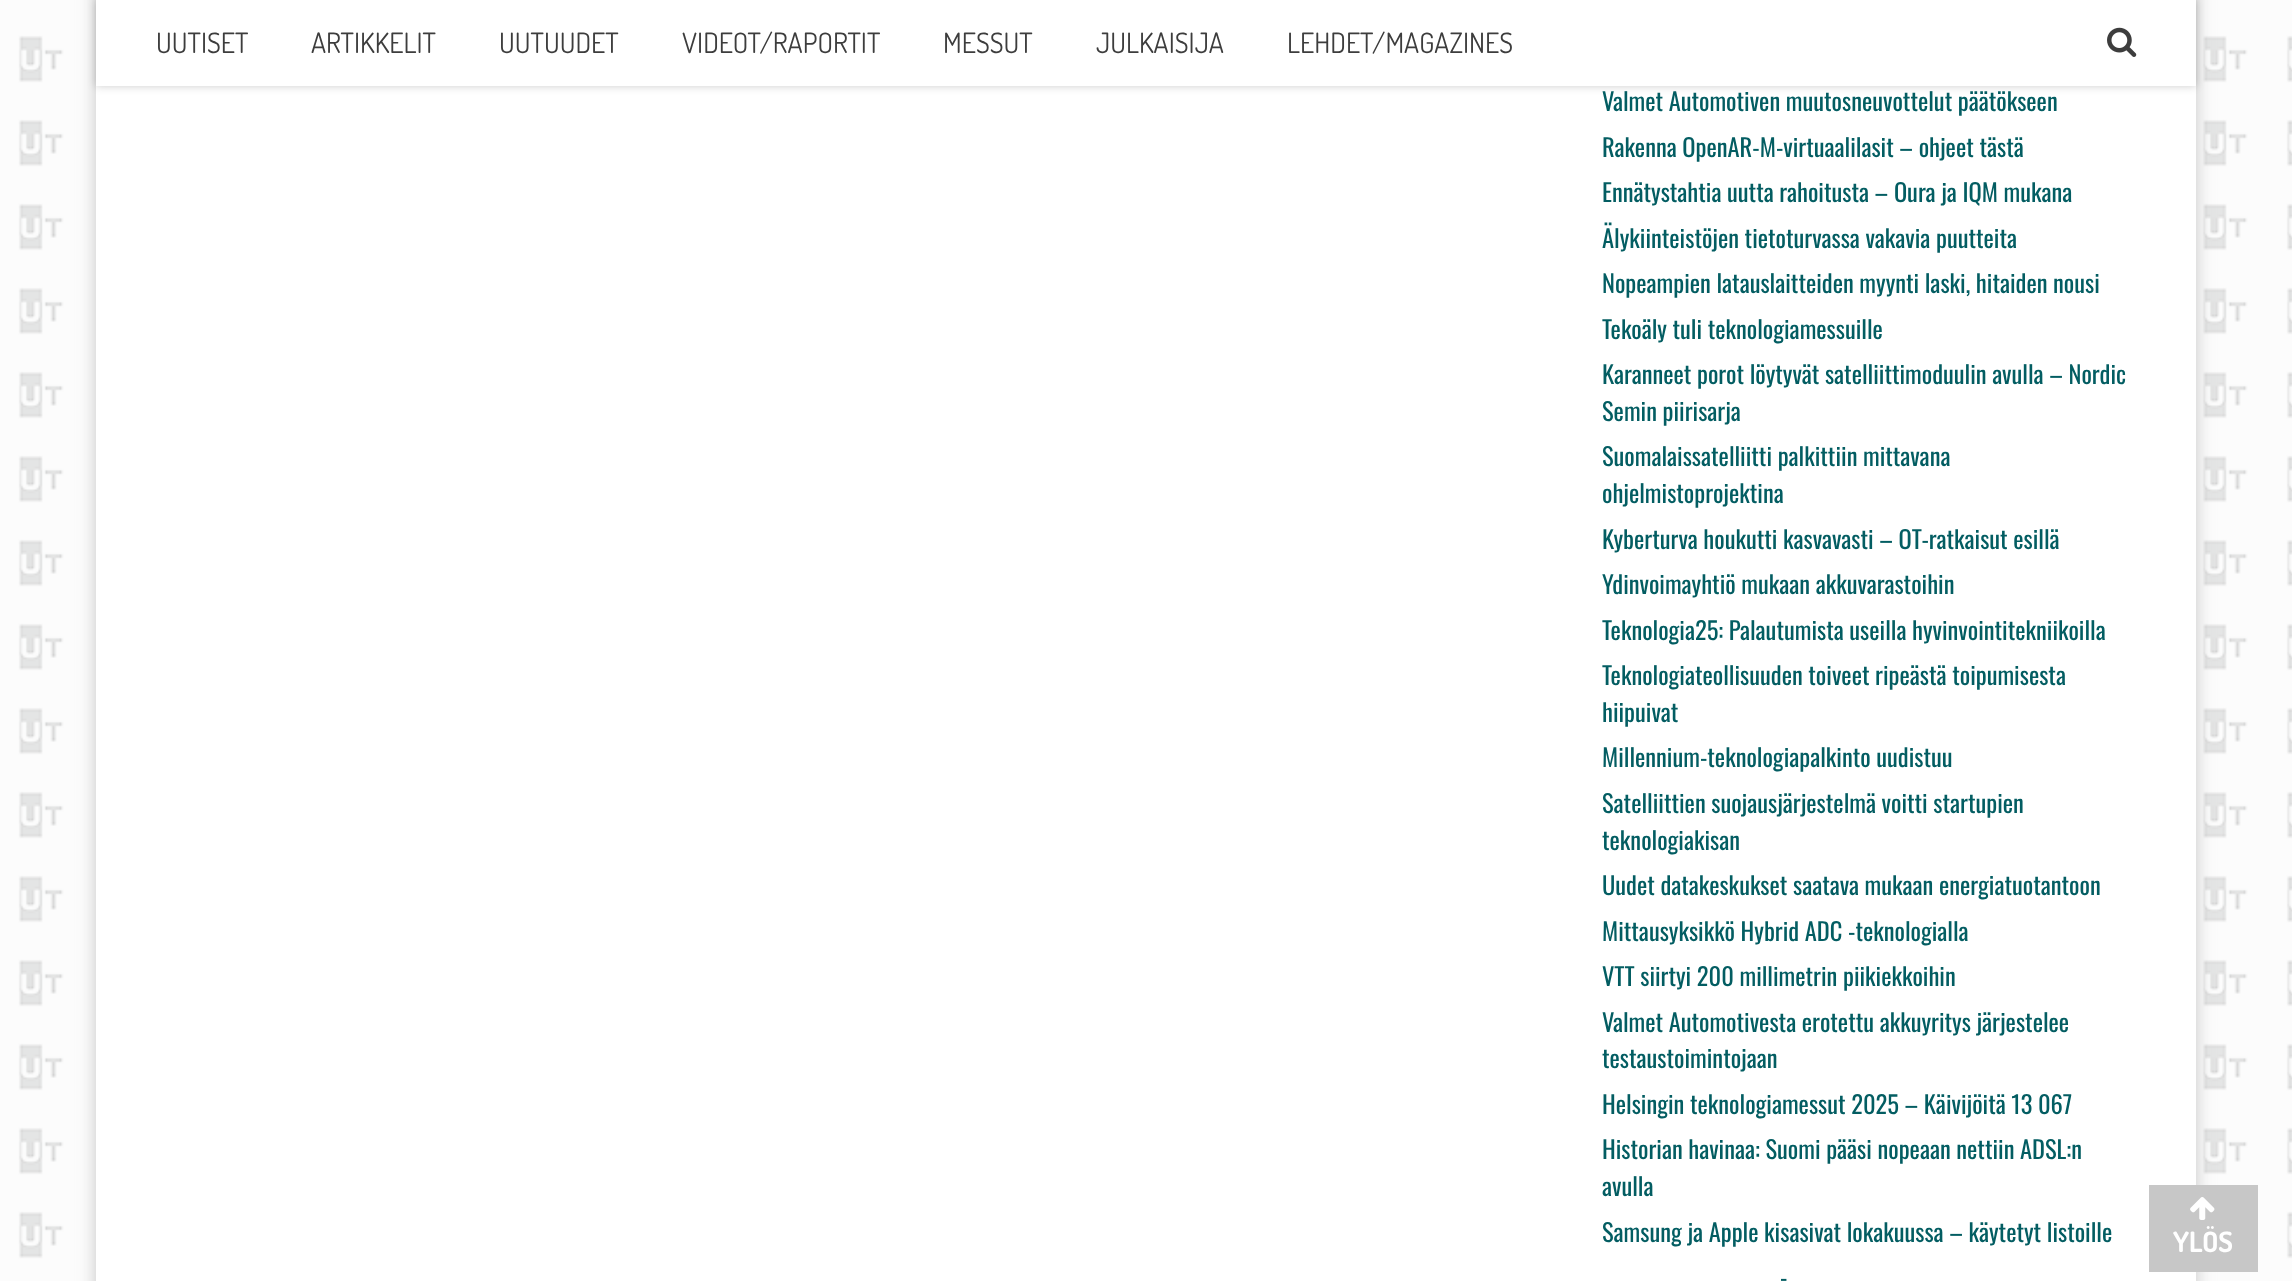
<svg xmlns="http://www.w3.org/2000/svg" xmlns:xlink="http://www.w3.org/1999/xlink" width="2292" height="1281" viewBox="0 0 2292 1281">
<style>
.cls-1{font:28px Dosis;fill:#3d3d3d}
.cls-2{font:24.5px Oswald;fill:#035d62}
.cls-3{font:bold 28px Dosis;fill:#ffffff}
</style>
<rect width="100%" height="100%" fill="#ffffff"/>
<image xlink:href="image0.png" x="0" y="0" width="2292" height="1281"/>
<rect fill="#c7c7c7" filter="blur(9px)" x="96" y="-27" width="2100" height="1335"/>
<rect fill="#ffffff" x="96" y="86" width="2100" height="1195"/>
<rect fill="#000000" fill-opacity="0.2" filter="blur(4.5px)" x="96" y="0" width="2100" height="86"/>
<rect fill="#ffffff" x="96" y="0" width="2100" height="86"/>
<image xlink:href="image1.png" x="2107" y="27" width="30" height="30"/>
<rect fill="#c7c7c7" x="2149" y="1185" width="109" height="87"/>
<image xlink:href="image2.png" x="2190" y="1197" width="25" height="23"/>
<text class="cls-1" x="156" y="53">UUTISET</text>
<text class="cls-1" x="311" y="53">ARTIKKELIT</text>
<text class="cls-1" x="499" y="53">UUTUUDET</text>
<text class="cls-1" x="682" y="53">VIDEOT/RAPORTIT</text>
<text class="cls-1" x="943" y="53">MESSUT</text>
<text class="cls-1" x="1096" y="53">JULKAISIJA</text>
<text class="cls-1" x="1287" y="53">LEHDET/MAGAZINES</text>
<text class="cls-2"><tspan x="1602" y="111">Valmet Automotiven muutosneuvottelut päätökseen</tspan><tspan x="1602" y="157">Rakenna OpenAR-M-virtuaalilasit – ohjeet tästä</tspan><tspan x="1602" y="202">Ennätystahtia uutta rahoitusta – Oura ja IQM mukana</tspan><tspan x="1602" y="248">Älykiinteistöjen tietoturvassa vakavia puutteita</tspan><tspan x="1602" y="293">Nopeampien latauslaitteiden myynti laski, hitaiden nousi</tspan><tspan x="1602" y="339">Tekoäly tuli teknologiamessuille</tspan><tspan x="1602" y="384">Karanneet porot löytyvät satelliittimoduulin avulla – Nordic</tspan><tspan x="1602" y="421">Semin piirisarja</tspan><tspan x="1602" y="466">Suomalaissatelliitti palkittiin mittavana</tspan><tspan x="1602" y="503">ohjelmistoprojektina</tspan><tspan x="1602" y="549">Kyberturva houkutti kasvavasti – OT-ratkaisut esillä</tspan><tspan x="1602" y="594">Ydinvoimayhtiö mukaan akkuvarastoihin</tspan><tspan x="1602" y="640">Teknologia25: Palautumista useilla hyvinvointitekniikoilla</tspan><tspan x="1602" y="685">Teknologiateollisuuden toiveet ripeästä toipumisesta</tspan><tspan x="1602" y="722">hiipuivat</tspan><tspan x="1602" y="767">Millennium-teknologiapalkinto uudistuu</tspan><tspan x="1602" y="813">Satelliittien suojausjärjestelmä voitti startupien</tspan><tspan x="1602" y="850">teknologiakisan</tspan><tspan x="1602" y="895">Uudet datakeskukset saatava mukaan energiatuotantoon</tspan><tspan x="1602" y="941">Mittausyksikkö Hybrid ADC -teknologialla</tspan><tspan x="1602" y="986">VTT siirtyi 200 millimetrin piikiekkoihin</tspan><tspan x="1602" y="1032">Valmet Automotivesta erotettu akkuyritys järjestelee</tspan><tspan x="1602" y="1068">testaustoimintojaan</tspan><tspan x="1602" y="1114">Helsingin teknologiamessut 2025 – Käivijöitä 13 067</tspan><tspan x="1602" y="1159">Historian havinaa: Suomi pääsi nopeaan nettiin ADSL:n</tspan><tspan x="1602" y="1196">avulla</tspan><tspan x="1602" y="1242">Samsung ja Apple kisasivat lokakuussa – käytetyt listoille</tspan></text>
<text class="cls-2" x="1780" y="1287">-</text>
<text class="cls-3" x="2173" y="1252">YLÖS</text>
</svg>
